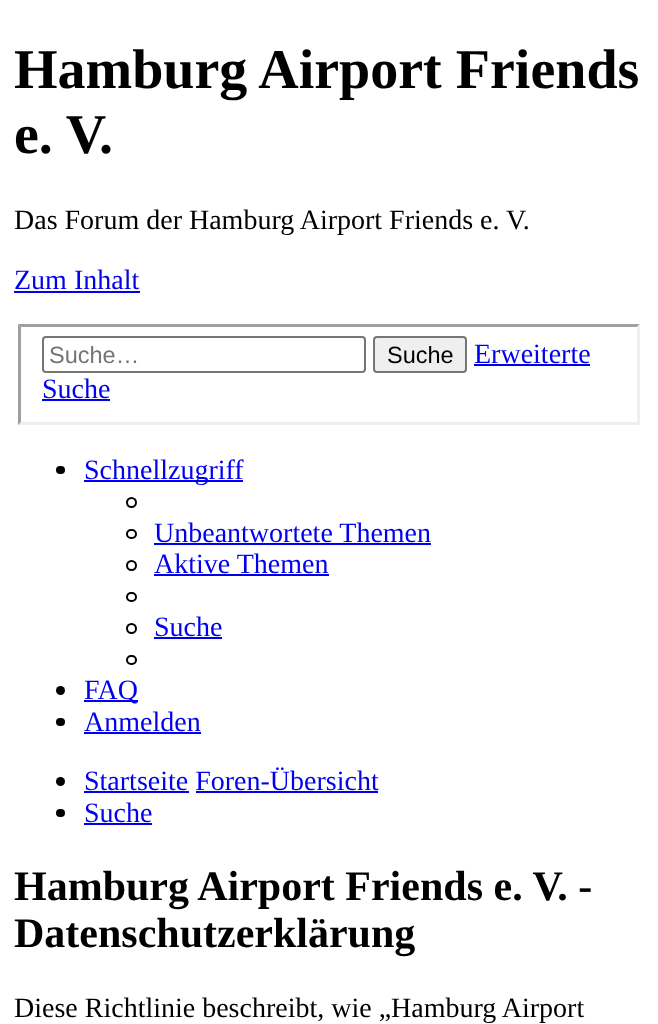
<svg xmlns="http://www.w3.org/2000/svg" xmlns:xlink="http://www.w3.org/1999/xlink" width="658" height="1024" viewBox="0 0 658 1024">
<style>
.cls-1{font:bold 56px Liberation Serif;fill:#000000}
.cls-2{font:28px Liberation Serif;fill:#000000}
.cls-3{font:28px Liberation Serif;fill:#0000ee}
.cls-4{font:23.5px Liberation Sans;fill:#757575}
.cls-5{font:23.5px Liberation Sans;fill:#000000}
.cls-6{font:bold 42px Liberation Serif;fill:#000000}
</style>
<rect width="100%" height="100%" fill="#ffffff"/>
<rect fill="#0000ee" x="14" y="291" width="126" height="2"/>
<path fill="#9f9f9f" d="M18 324H640L637 327H21Z"/>
<path fill="#efefef" d="M640 324V425L637 422V327Z"/>
<path fill="#efefef" d="M640 425H18L21 422H637Z"/>
<path fill="#9f9f9f" d="M18 425V324L21 327V422Z"/>
<rect fill="none" stroke="#767676" stroke-width="2" x="43" y="337" width="322" height="35" rx="3"/>
<rect fill="#efefef" stroke="#767676" stroke-width="2" x="374" y="337" width="92" height="35" rx="3"/>
<rect fill="#0000ee" x="474" y="364" width="116" height="2"/>
<rect fill="#0000ee" x="42" y="399" width="68" height="2"/>
<rect fill="#000000" x="56" y="466" width="9" height="8" rx="4"/>
<rect fill="#0000ee" x="84" y="480" width="159" height="2"/>
<circle fill="none" stroke="#000000" stroke-width="2" cx="131.5" cy="502.5" r="4.5"/>
<rect fill="none" stroke="#000000" stroke-width="2" x="127" y="530" width="9" height="8" rx="4"/>
<rect fill="#0000ee" x="154" y="543" width="277" height="2"/>
<circle fill="none" stroke="#000000" stroke-width="2" cx="131.5" cy="565.5" r="4.5"/>
<rect fill="#0000ee" x="154" y="574" width="175" height="2"/>
<rect fill="none" stroke="#000000" stroke-width="2" x="127" y="593" width="9" height="8" rx="4"/>
<circle fill="none" stroke="#000000" stroke-width="2" cx="131.5" cy="628.5" r="4.5"/>
<rect fill="#0000ee" x="154" y="637" width="68" height="2"/>
<rect fill="none" stroke="#000000" stroke-width="2" x="127" y="656" width="9" height="8" rx="4"/>
<circle fill="#000000" cx="60.5" cy="690.5" r="4.5"/>
<rect fill="#0000ee" x="84" y="700" width="54" height="2"/>
<rect fill="#000000" x="56" y="718" width="9" height="8" rx="4"/>
<rect fill="#0000ee" x="84" y="732" width="117" height="2"/>
<circle fill="#000000" cx="60.5" cy="781.5" r="4.5"/>
<rect fill="#0000ee" x="84" y="791" width="105" height="2"/>
<rect fill="#0000ee" x="196" y="791" width="182" height="2"/>
<rect fill="#000000" x="56" y="809" width="9" height="8" rx="4"/>
<rect fill="#0000ee" x="84" y="823" width="68" height="2"/>
<text class="cls-1"><tspan x="14" y="88">Hamburg Airport Friends</tspan><tspan x="14" y="153">e. V.</tspan></text>
<text class="cls-2" x="14" y="229">Das Forum der Hamburg Airport Friends e. V.</text>
<text class="cls-3" x="14" y="289">Zum Inhalt</text>
<text class="cls-4" x="49" y="363">Suche…</text>
<text class="cls-5" x="387" y="363">Suche</text>
<text class="cls-3" x="474" y="363">Erweiterte</text>
<text class="cls-3" x="42" y="398">Suche</text>
<text class="cls-3" x="84" y="479">Schnellzugriff</text>
<text class="cls-3"><tspan x="154" y="542">Unbeantwortete Themen</tspan><tspan x="154" y="573">Aktive Themen</tspan></text>
<text class="cls-3" x="154" y="636">Suche</text>
<text class="cls-3"><tspan x="84" y="699">FAQ</tspan><tspan x="84" y="731">Anmelden</tspan></text>
<text class="cls-3"><tspan x="84" y="790">Startseite Foren-Übersicht</tspan><tspan x="84" y="822">Suche</tspan></text>
<text class="cls-6"><tspan x="14" y="900">Hamburg Airport Friends e. V. -</tspan><tspan x="14" y="947">Datenschutzerklärung</tspan></text>
<text class="cls-2" x="14" y="1017">Diese Richtlinie beschreibt, wie „Hamburg Airport</text>
</svg>
